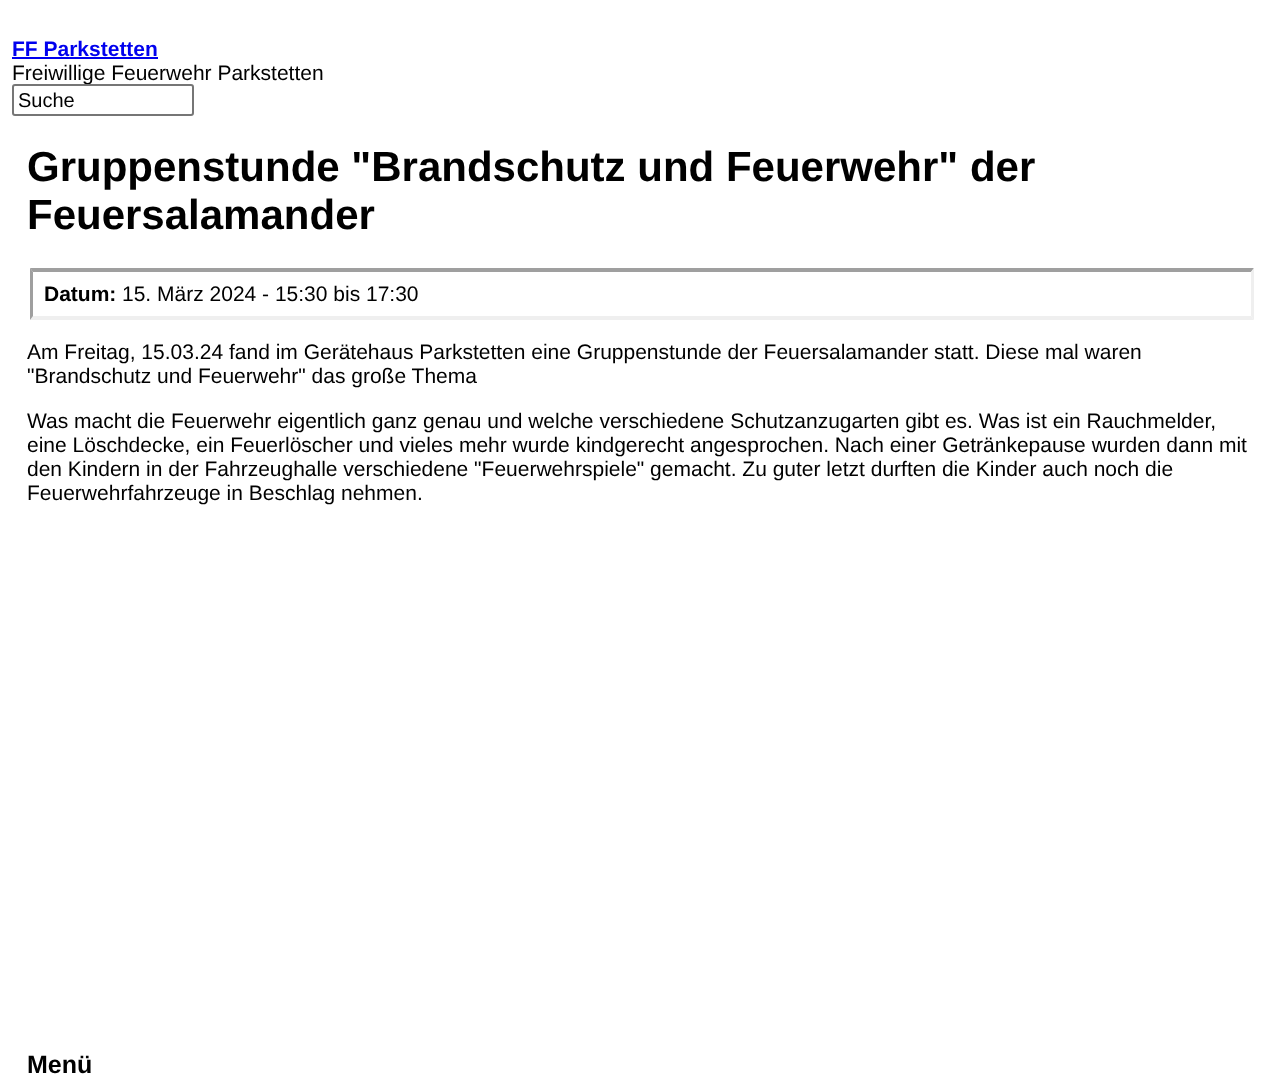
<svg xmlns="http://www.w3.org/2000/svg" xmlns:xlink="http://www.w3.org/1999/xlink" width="1283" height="1084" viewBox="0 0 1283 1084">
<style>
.cls-1{font:bold 21px Liberation Sans;fill:#0000ee}
.cls-2{font:21px Liberation Sans;fill:#000000}
.cls-3{font:20px Liberation Sans;fill:#000000}
.cls-4{font:bold 42px Liberation Sans;fill:#000000}
.cls-5{font:bold 21px Liberation Sans;fill:#000000}
.cls-6{font:bold 25px Liberation Sans;fill:#000000}
</style>
<rect width="100%" height="100%" fill="#ffffff"/>
<rect fill="#0000ee" x="12" y="57" width="146" height="2"/>
<path fill="#9f9f9f" d="M30 268H1254L1251 272H33Z"/>
<path fill="#efefef" d="M1254 268V320L1251 316V272Z"/>
<path fill="#efefef" d="M1254 320H30L33 316H1251Z"/>
<path fill="#9f9f9f" d="M30 320V268L33 272V316Z"/>
<text class="cls-1" x="12" y="56">FF Parkstetten</text>
<text class="cls-2" x="12" y="80">Freiwillige Feuerwehr Parkstetten</text>
<rect fill="#ffffff" stroke="#767676" stroke-width="2" x="13" y="85" width="180" height="30" rx="2"/>
<text class="cls-3" x="18" y="107">Suche</text>
<text class="cls-4"><tspan x="27" y="181">Gruppenstunde "Brandschutz und Feuerwehr" der</tspan><tspan x="27" y="229">Feuersalamander</tspan></text>
<text class="cls-5" x="44" y="301">Datum:</text>
<text class="cls-2" x="122" y="301">15. März 2024 - 15:30 bis 17:30</text>
<text class="cls-2"><tspan x="27" y="359">Am Freitag, 15.03.24 fand im Gerätehaus Parkstetten eine Gruppenstunde der Feuersalamander statt. Diese mal waren</tspan><tspan x="27" y="383">"Brandschutz und Feuerwehr" das große Thema</tspan></text>
<text class="cls-2"><tspan x="27" y="428">Was macht die Feuerwehr eigentlich ganz genau und welche verschiedene Schutzanzugarten gibt es. Was ist ein Rauchmelder,</tspan><tspan x="27" y="452">eine Löschdecke, ein Feuerlöscher und vieles mehr wurde kindgerecht angesprochen. Nach einer Getränkepause wurden dann mit</tspan><tspan x="27" y="476">den Kindern in der Fahrzeughalle verschiedene "Feuerwehrspiele" gemacht. Zu guter letzt durften die Kinder auch noch die</tspan><tspan x="27" y="500">Feuerwehrfahrzeuge in Beschlag nehmen.</tspan></text>
<text class="cls-6" x="27" y="1073">Menü</text>
</svg>
